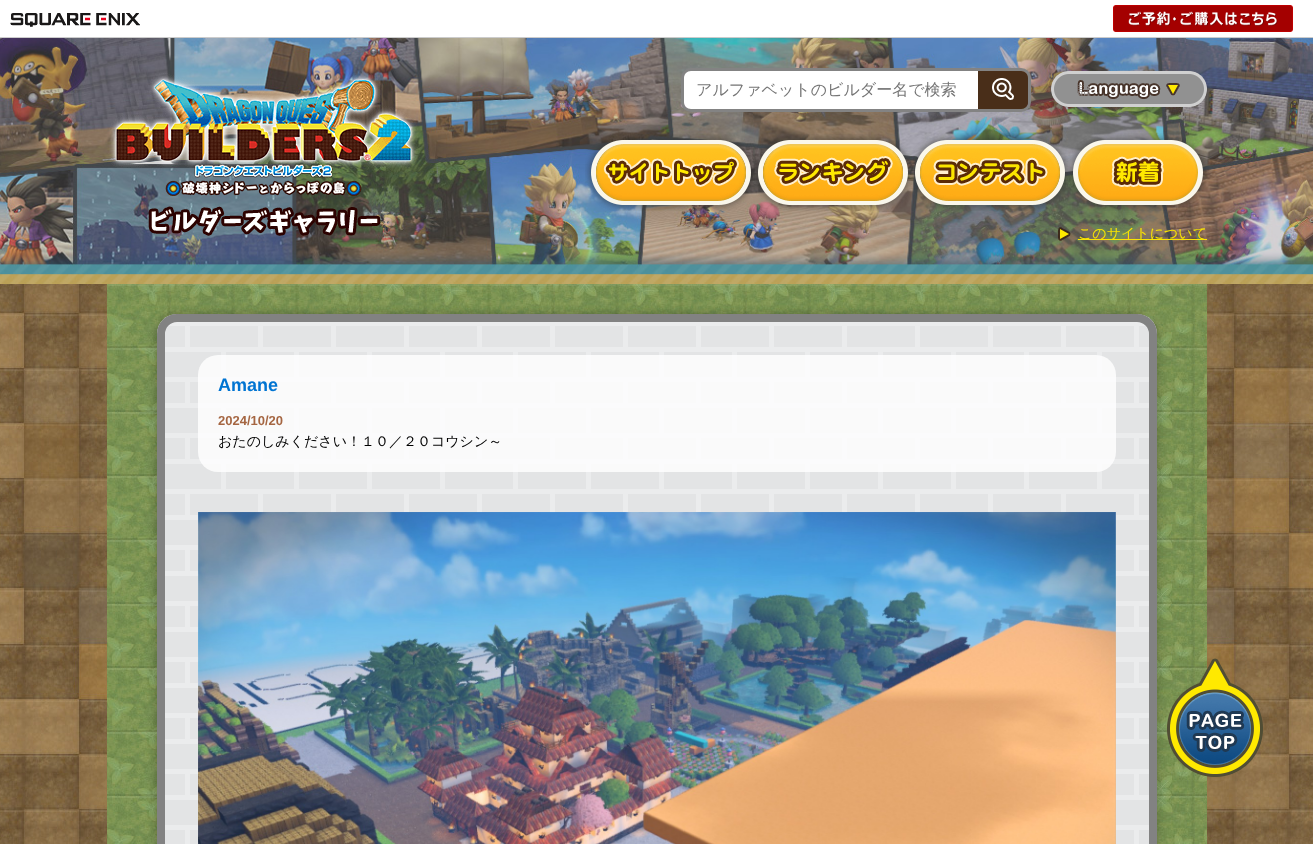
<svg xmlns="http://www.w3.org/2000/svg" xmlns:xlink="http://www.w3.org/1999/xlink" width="1313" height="844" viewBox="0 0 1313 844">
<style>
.cls-1{font:500 16px WenQuanYi Zen Hei;fill:#757575}
.cls-2{font:500 13px WenQuanYi Zen Hei;fill:#918d8c}
.cls-3{font:500 14px WenQuanYi Zen Hei;fill:#fae501}
.cls-4{font:bold 18px Liberation Sans;fill:#0074d2}
.cls-5{font:bold 13px Liberation Sans;fill:#a56642}
.cls-6{font:500 14px WenQuanYi Zen Hei;fill:#000000}
</style>
<rect width="100%" height="100%" fill="#ffffff"/>
<rect fill="#cccccc" x="0" y="37" width="1313" height="1"/>
<image xlink:href="image0.png" x="10" y="13" width="130" height="14"/>
<image xlink:href="image1.png" x="1113" y="5" width="180" height="27"/>
<image xlink:href="image2.png" x="0" y="284" width="1313" height="560"/>
<image xlink:href="image3.png" x="0" y="38" width="1313" height="246"/>
<image xlink:href="image4.png" x="108" y="72" width="310" height="164"/>
<rect fill="none" stroke="#838383" stroke-width="3" x="682.5" y="69.5" width="347" height="41" rx="8.5"/>
<path fill="#ffffff" d="M691 71H978V109H691C687 109 684 106 684 102V78C684 74 687 71 691 71Z"/>
<path fill="#492e19" d="M978 71H1021C1025 71 1028 74 1028 78V102C1028 106 1025 109 1021 109H978Z"/>
<image xlink:href="image5.png" x="992" y="78" width="22" height="22"/>
<image xlink:href="image6.png" x="1051" y="71" width="156" height="36"/>
<image xlink:href="image7.png" x="585" y="134" width="170" height="77"/>
<image xlink:href="image8.png" x="754" y="134" width="160" height="77"/>
<image xlink:href="image9.png" x="909" y="133" width="162" height="78"/>
<image xlink:href="image10.png" x="1067" y="133" width="142" height="78"/>
<image xlink:href="image11.png" x="1058" y="227" width="13" height="14"/>
<rect fill="#fae501" x="1078" y="239" width="129" height="1"/>
<image xlink:href="image12.png" x="107" y="284" width="1100" height="560"/>
<rect fill="#000000" fill-opacity="0.3" filter="blur(5px)" x="157" y="314" width="1000" height="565" rx="20"/>
<rect fill="#e3e4e5" x="157" y="314" width="1000" height="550" rx="20"/>
<image xlink:href="image13.png" x="158" y="321" width="998" height="523"/>
<rect fill="none" stroke="#828282" stroke-width="8" x="161" y="318" width="992" height="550" rx="16"/>
<rect fill="#ffffff" fill-opacity="0.8" x="198" y="355" width="918" height="117" rx="20"/>
<image xlink:href="image14.png" x="198" y="512" width="918" height="332"/>
<image xlink:href="image15.png" x="1167" y="658" width="96" height="119"/>
<text class="cls-1" x="696" y="95">アルファベットのビルダー名で検索</text>
<text class="cls-2" x="1078" y="94">語</text>
<text class="cls-3" x="1078" y="238">このサイトについて</text>
<text class="cls-4" x="218" y="391">Amane</text>
<text class="cls-5" x="218" y="425">2024/10/20</text>
<text class="cls-6" x="218" y="446">おたのしみください！１０／２０コウシン～</text>
</svg>
